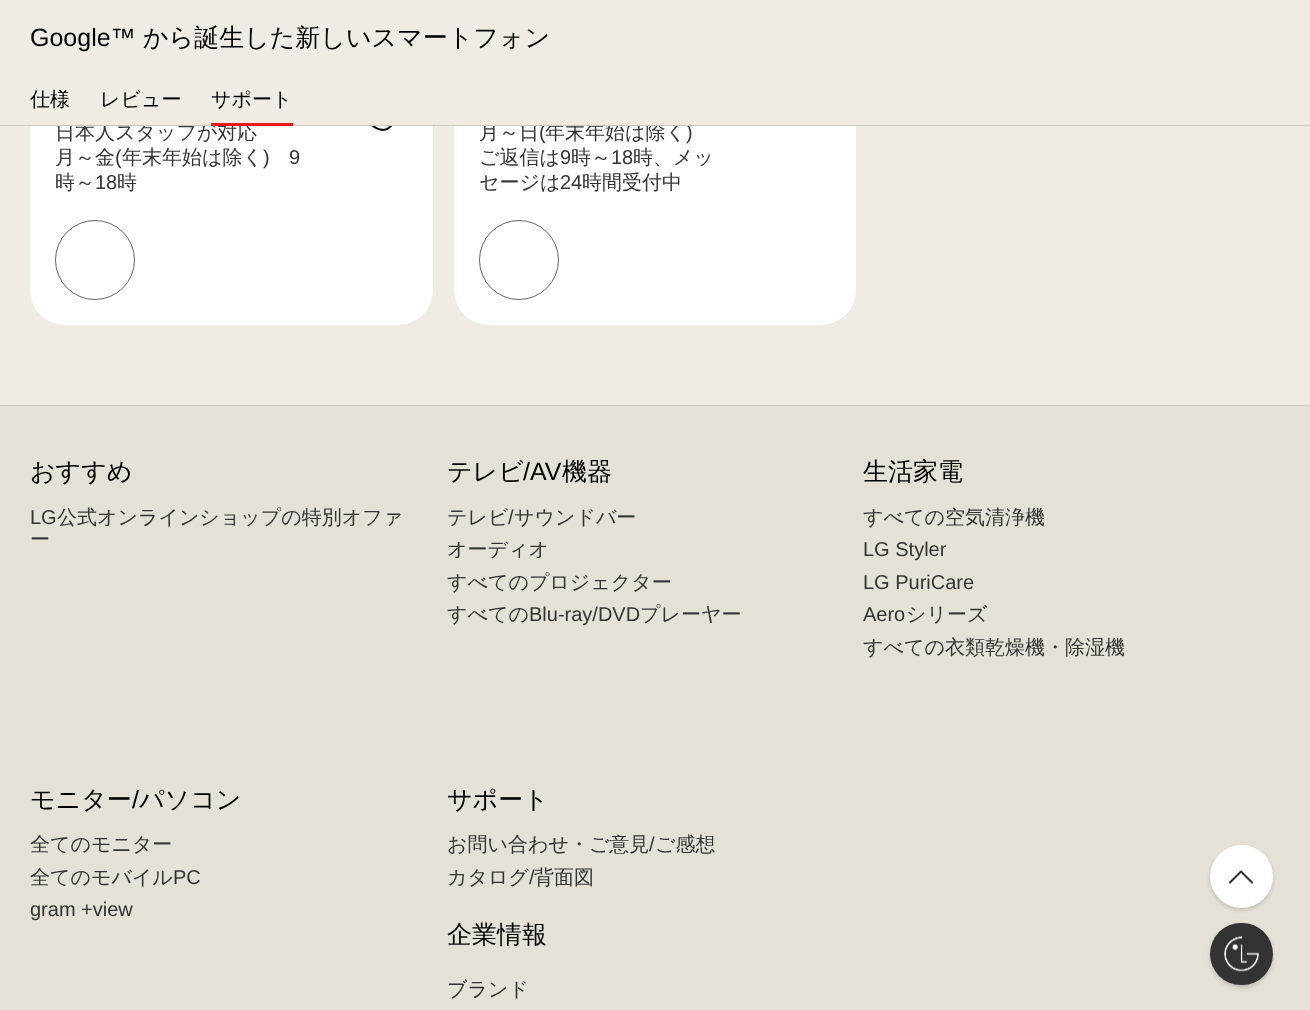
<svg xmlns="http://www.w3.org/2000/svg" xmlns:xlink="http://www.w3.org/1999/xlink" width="1310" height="1010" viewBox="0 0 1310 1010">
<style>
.cls-1{font:500 20px WenQuanYi Zen Hei;fill:#333333}
.cls-2{font:20px Liberation Sans;fill:#333333}
.cls-3{font:500 25px WenQuanYi Zen Hei;fill:#000000}
.cls-4{font:25px Liberation Sans;fill:#000000}
.cls-5{font:500 20px WenQuanYi Zen Hei;fill:#000000}
</style>
<rect width="100%" height="100%" fill="#f0ece4"/>
<rect fill="#ffffff" x="30" y="33" width="403" height="292" rx="35"/>
<image xlink:href="image0.png" x="371" y="126" width="22" height="5"/>
<circle fill="none" stroke="#646464" cx="95" cy="260" r="39.5"/>
<rect fill="#ffffff" x="454" y="33" width="402" height="292" rx="35"/>
<circle fill="none" stroke="#646464" cx="519" cy="260" r="39.5"/>
<rect fill="#e6e1d6" x="0" y="406" width="1310" height="604"/>
<rect fill="#cbc8c2" x="0" y="405" width="1310" height="1"/>
<rect fill="#000000" fill-opacity="0.15" filter="blur(2px)" x="1210" y="848" width="63" height="62" rx="31"/>
<circle fill="#ffffff" cx="1241.5" cy="876.5" r="31.5"/>
<path fill="none" stroke="#333333" stroke-width="2.1" stroke-linecap="round" stroke-linejoin="round" d="M1230 882.5L1241 871.5L1252 882.5"/>
<rect fill="#000000" fill-opacity="0.15" filter="blur(2px)" x="1210" y="925" width="63" height="63" rx="31.5"/>
<rect fill="#333333" x="1210" y="923" width="63" height="62" rx="31"/>
<image xlink:href="image1.png" x="1218" y="930" width="46" height="47"/>
<text class="cls-1"><tspan x="55" y="139">日本人スタッフが対応</tspan><tspan x="55" y="164">月～金</tspan></text>
<text class="cls-2" x="115" y="164">(</text>
<text class="cls-1" x="122" y="164">年末年始は除く</text>
<text class="cls-2" x="263" y="164">)</text>
<text class="cls-2" x="289" y="164">9</text>
<text class="cls-1" x="55" y="189">時～</text>
<text class="cls-2" x="95" y="189">18</text>
<text class="cls-1" x="117" y="189">時</text>
<text class="cls-1" x="479" y="139">月～日</text>
<text class="cls-2" x="539" y="139">(</text>
<text class="cls-1" x="545" y="139">年末年始は除く</text>
<text class="cls-2" x="686" y="139">)</text>
<rect fill="#f0ece4" x="30" y="33" width="826" height="92"/>
<text class="cls-3" x="143" y="46">から誕生した新しいスマートフォン</text>
<text class="cls-4" x="30" y="46">Google™</text>
<rect fill="#cbc8c2" x="0" y="125" width="1310" height="1"/>
<rect fill="#ea1917" x="211" y="123" width="82" height="3"/>
<text class="cls-5" x="211" y="106">サポート</text>
<text class="cls-5" x="100" y="106">レビュー</text>
<text class="cls-5" x="30" y="106">仕様</text>
<text class="cls-1" x="479" y="164">ご返信は</text>
<text class="cls-2" x="560" y="164">9</text>
<text class="cls-1" x="571" y="164">時～</text>
<text class="cls-2" x="611" y="164">18</text>
<text class="cls-1" x="633" y="164">時、メッ</text>
<text class="cls-1" x="479" y="189">セージは</text>
<text class="cls-2" x="560" y="189">24</text>
<text class="cls-1" x="582" y="189">時間受付中</text>
<text class="cls-3" x="30" y="480">おすすめ</text>
<text class="cls-2" x="30" y="524">LG</text>
<text class="cls-1" x="57" y="524">公式オンラインショップの特別オファ</text>
<text class="cls-1" x="30" y="546">ー</text>
<text class="cls-3" x="447" y="480">テレビ</text>
<text class="cls-4" x="523" y="480">/AV</text>
<text class="cls-3" x="562" y="480">機器</text>
<text class="cls-1" x="447" y="524">テレビ</text>
<text class="cls-2" x="508" y="524">/</text>
<text class="cls-1" x="514" y="524">サウンドバー</text>
<text class="cls-1"><tspan x="447" y="556">オーディオ</tspan><tspan x="447" y="589">すべてのプロジェクター</tspan><tspan x="447" y="621">すべての</tspan></text>
<text class="cls-2" x="529" y="621">Blu-ray/DVD</text>
<text class="cls-1" x="640" y="621">プレーヤー</text>
<text class="cls-3" x="863" y="480">生活家電</text>
<text class="cls-1" x="863" y="524">すべての空気清浄機</text>
<text class="cls-2"><tspan x="863" y="556">LG Styler</tspan><tspan x="863" y="589">LG PuriCare</tspan><tspan x="863" y="621">Aero</tspan></text>
<text class="cls-1" x="906" y="621">シリーズ</text>
<text class="cls-1" x="863" y="654">すべての衣類乾燥機・除湿機</text>
<text class="cls-3" x="30" y="808">モニター</text>
<text class="cls-4" x="132" y="808">/</text>
<text class="cls-3" x="139" y="808">パソコン</text>
<text class="cls-1"><tspan x="30" y="851">全てのモニター</tspan><tspan x="30" y="884">全てのモバイル</tspan></text>
<text class="cls-2" x="173" y="884">PC</text>
<text class="cls-2" x="30" y="916">gram +view</text>
<text class="cls-3" x="447" y="808">サポート</text>
<text class="cls-1" x="447" y="851">お問い合わせ・ご意見</text>
<text class="cls-2" x="649" y="851">/</text>
<text class="cls-1" x="655" y="851">ご感想</text>
<text class="cls-1" x="447" y="884">カタログ</text>
<text class="cls-2" x="529" y="884">/</text>
<text class="cls-1" x="534" y="884">背面図</text>
<text class="cls-3" x="447" y="943">企業情報</text>
<text class="cls-1" x="447" y="996">ブランド</text>
</svg>
